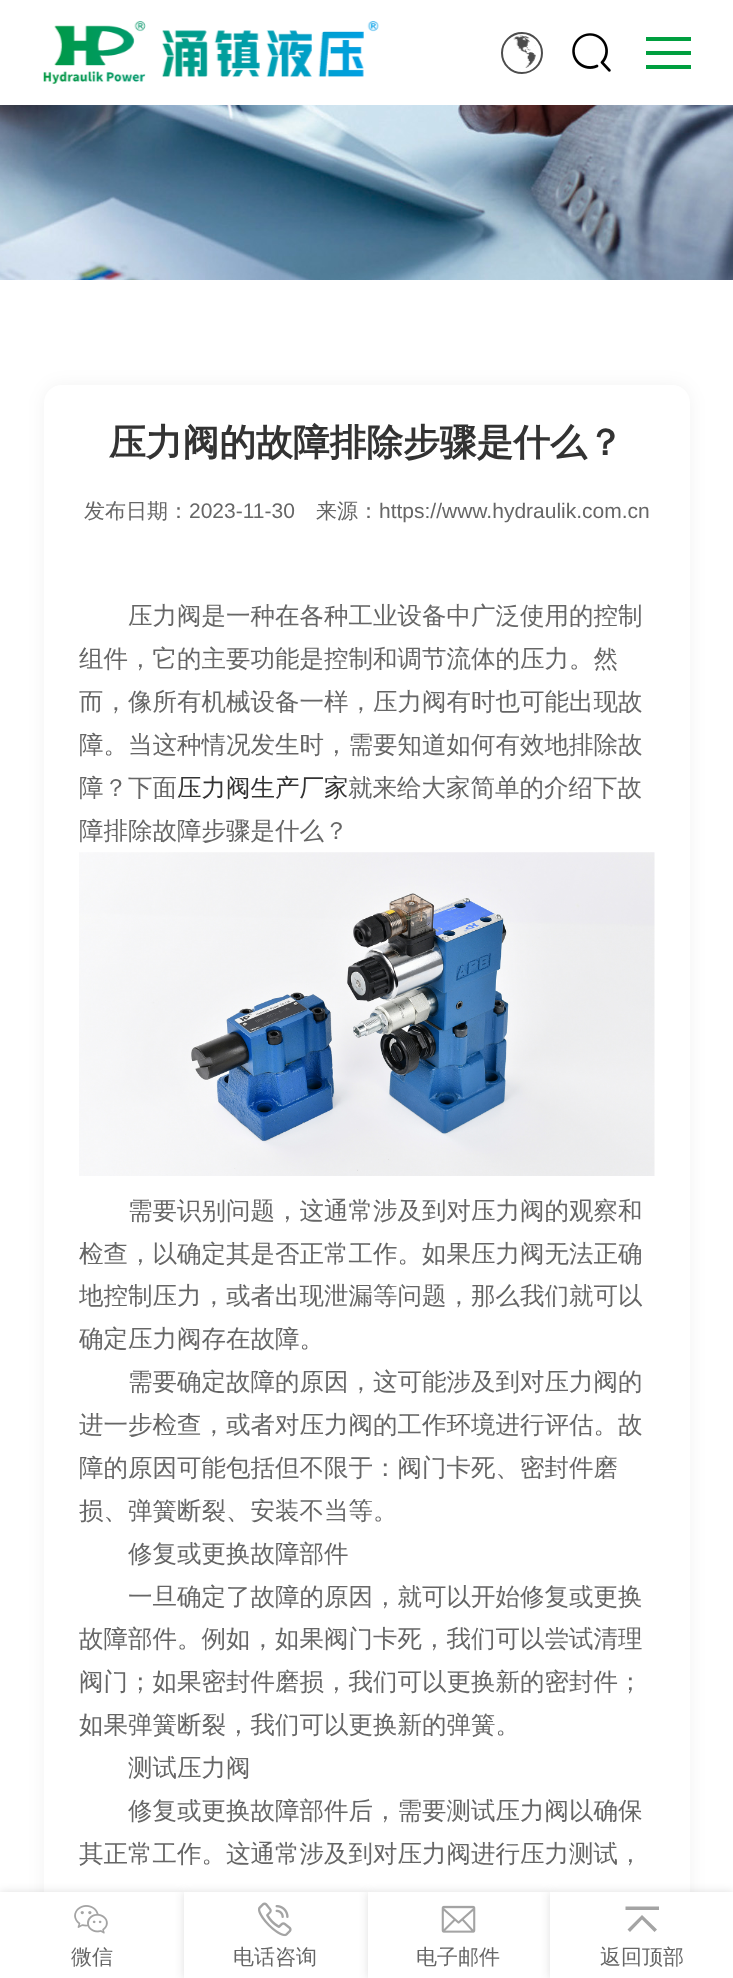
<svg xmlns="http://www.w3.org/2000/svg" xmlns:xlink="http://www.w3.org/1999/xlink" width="733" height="1978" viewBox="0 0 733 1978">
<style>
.cls-1{font:bold 36.75px WenQuanYi Zen Hei;fill:#333333}
.cls-2{font:500 21px WenQuanYi Zen Hei;fill:#666666}
.cls-3{font:21px Liberation Sans;fill:#666666}
.cls-4{font:500 24.5px WenQuanYi Zen Hei;fill:#666666}
.cls-5{font:500 24.5px WenQuanYi Zen Hei;fill:#333333}
</style>
<rect width="100%" height="100%" fill="#ffffff"/>
<image xlink:href="image0.png" x="43" y="21" width="336" height="63"/>
<circle fill="none" stroke="#4d4d4d" stroke-width="2" cx="522" cy="53" r="20"/>
<image xlink:href="image1.png" x="513" y="35" width="23" height="33"/>
<image xlink:href="image2.png" x="572" y="33" width="39" height="39"/>
<rect fill="#009f3f" x="646" y="51" width="45" height="4"/>
<rect fill="#009f3f" x="646" y="37" width="45" height="4"/>
<rect fill="#009f3f" x="646" y="65" width="45" height="4"/>
<image xlink:href="image3.png" x="0" y="105" width="733" height="175"/>
<rect fill="#000000" fill-opacity="0.05" filter="blur(9px)" x="44" y="385" width="646" height="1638" rx="18"/>
<rect fill="#ffffff" x="44" y="385" width="646" height="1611" rx="18"/>
<image xlink:href="image4.png" x="79" y="852" width="576" height="324"/>
<rect fill="#000000" fill-opacity="0.13" filter="blur(5px)" x="0" y="1892" width="184" height="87"/>
<rect fill="#ffffff" x="0" y="1892" width="184" height="86"/>
<image xlink:href="image5.png" x="74" y="1905" width="34" height="29"/>
<rect fill="#000000" fill-opacity="0.13" filter="blur(5px)" x="184" y="1892" width="184" height="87"/>
<rect fill="#ffffff" x="184" y="1892" width="184" height="86"/>
<image xlink:href="image6.png" x="258" y="1902" width="34" height="35"/>
<rect fill="#000000" fill-opacity="0.13" filter="blur(5px)" x="368" y="1892" width="182" height="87"/>
<rect fill="#ffffff" x="368" y="1892" width="182" height="86"/>
<image xlink:href="image7.png" x="441" y="1905" width="35" height="28"/>
<rect fill="#000000" fill-opacity="0.13" filter="blur(5px)" x="550" y="1892" width="183" height="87"/>
<rect fill="#ffffff" x="550" y="1892" width="183" height="86"/>
<path fill="#a4a4a4" d="M627.5 1929.5L630 1932L642 1919.5L654.5 1932L657 1929.5L642 1915ZM625.5 1906.5H659V1910H625.5Z"/>
<text class="cls-1" x="109" y="455">压力阀的故障排除步骤是什么？</text>
<text class="cls-2" x="84" y="518">发布日期：</text>
<text class="cls-3" x="189" y="518">2023-11-30</text>
<text class="cls-2" x="316" y="518">来源：</text>
<text class="cls-3" x="379" y="518">https://www.hydraulik.com.cn</text>
<text class="cls-4" x="128" y="624">压力阀是一种在各种工业设备中广泛使用的控制</text>
<text class="cls-4"><tspan x="79" y="667">组件，它的主要功能是控制和调节流体的压力。然</tspan><tspan x="79" y="710">而，像所有机械设备一样，压力阀有时也可能出现故</tspan><tspan x="79" y="753">障。当这种情况发生时，需要知道如何有效地排除故</tspan><tspan x="79" y="796">障？下面</tspan></text>
<text class="cls-5" x="177" y="796">压力阀生产厂家</text>
<text class="cls-4" x="348" y="796">就来给大家简单的介绍下故</text>
<text class="cls-4" x="79" y="839">障排除故障步骤是什么？</text>
<text class="cls-4" x="128" y="1219">需要识别问题，这通常涉及到对压力阀的观察和</text>
<text class="cls-4"><tspan x="79" y="1262">检查，以确定其是否正常工作。如果压力阀无法正确</tspan><tspan x="79" y="1304">地控制压力，或者出现泄漏等问题，那么我们就可以</tspan><tspan x="79" y="1347">确定压力阀存在故障。</tspan></text>
<text class="cls-4" x="128" y="1390">需要确定故障的原因，这可能涉及到对压力阀的</text>
<text class="cls-4"><tspan x="79" y="1433">进一步检查，或者对压力阀的工作环境进行评估。故</tspan><tspan x="79" y="1476">障的原因可能包括但不限于：阀门卡死、密封件磨</tspan><tspan x="79" y="1519">损、弹簧断裂、安装不当等。</tspan></text>
<text class="cls-4"><tspan x="128" y="1562">修复或更换故障部件</tspan><tspan x="128" y="1605">一旦确定了故障的原因，就可以开始修复或更换</tspan></text>
<text class="cls-4"><tspan x="79" y="1647">故障部件。例如，如果阀门卡死，我们可以尝试清理</tspan><tspan x="79" y="1690">阀门；如果密封件磨损，我们可以更换新的密封件；</tspan><tspan x="79" y="1733">如果弹簧断裂，我们可以更换新的弹簧。</tspan></text>
<text class="cls-4"><tspan x="128" y="1776">测试压力阀</tspan><tspan x="128" y="1819">修复或更换故障部件后，需要测试压力阀以确保</tspan></text>
<text class="cls-4" x="79" y="1862">其正常工作。这通常涉及到对压力阀进行压力测试，</text>
<text class="cls-2" x="71" y="1964">微信</text>
<text class="cls-2" x="233" y="1964">电话咨询</text>
<text class="cls-2" x="416" y="1964">电子邮件</text>
<text class="cls-2" x="600" y="1964">返回顶部</text>
</svg>
